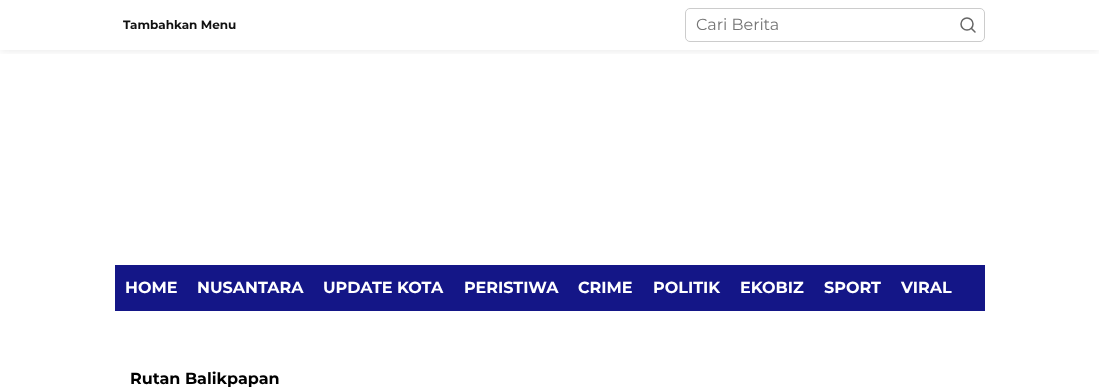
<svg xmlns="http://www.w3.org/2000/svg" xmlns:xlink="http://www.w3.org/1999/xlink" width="1099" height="389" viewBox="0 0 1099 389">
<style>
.cls-1{font:bold 12px Montserrat;fill:#111111}
.cls-2{font:16px Montserrat;fill:#757575}
.cls-3{font:bold 16px Montserrat;fill:#ffffff}
.cls-4{font:bold 16px Montserrat;fill:#000000}
</style>
<defs>
<clipPath id="clip1"><rect x="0" y="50" width="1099" height="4"/></clipPath>
</defs>
<rect width="100%" height="100%" fill="#ffffff"/>
<g clip-path="url(#clip1)">
<rect fill="#000000" fill-opacity="0.1" filter="blur(5px)" x="0" y="0" width="1099" height="50"/>
</g>
<rect fill="none" stroke="#cccccc" x="685.5" y="8.5" width="299" height="33" rx="4.5"/>
<circle fill="none" stroke="#666666" stroke-width="1.5" cx="967" cy="24" r="6"/>
<path fill="none" stroke="#666666" stroke-width="1.5" stroke-linecap="round" stroke-linejoin="round" d="M975 32L971.5 28.5"/>
<rect fill="#141687" x="115" y="265" width="870" height="46"/>
<text class="cls-1" x="123" y="29">Tambahkan Menu</text>
<text class="cls-2" x="696" y="30">Cari Berita</text>
<text class="cls-3" x="125" y="293">HOME</text>
<text class="cls-3" x="197" y="293">NUSANTARA</text>
<text class="cls-3" x="323" y="293">UPDATE KOTA</text>
<text class="cls-3" x="464" y="293">PERISTIWA</text>
<text class="cls-3" x="578" y="293">CRIME</text>
<text class="cls-3" x="653" y="293">POLITIK</text>
<text class="cls-3" x="740" y="293">EKOBIZ</text>
<text class="cls-3" x="824" y="293">SPORT</text>
<text class="cls-3" x="901" y="293">VIRAL</text>
<text class="cls-4" x="130" y="384">Rutan Balikpapan</text>
</svg>
